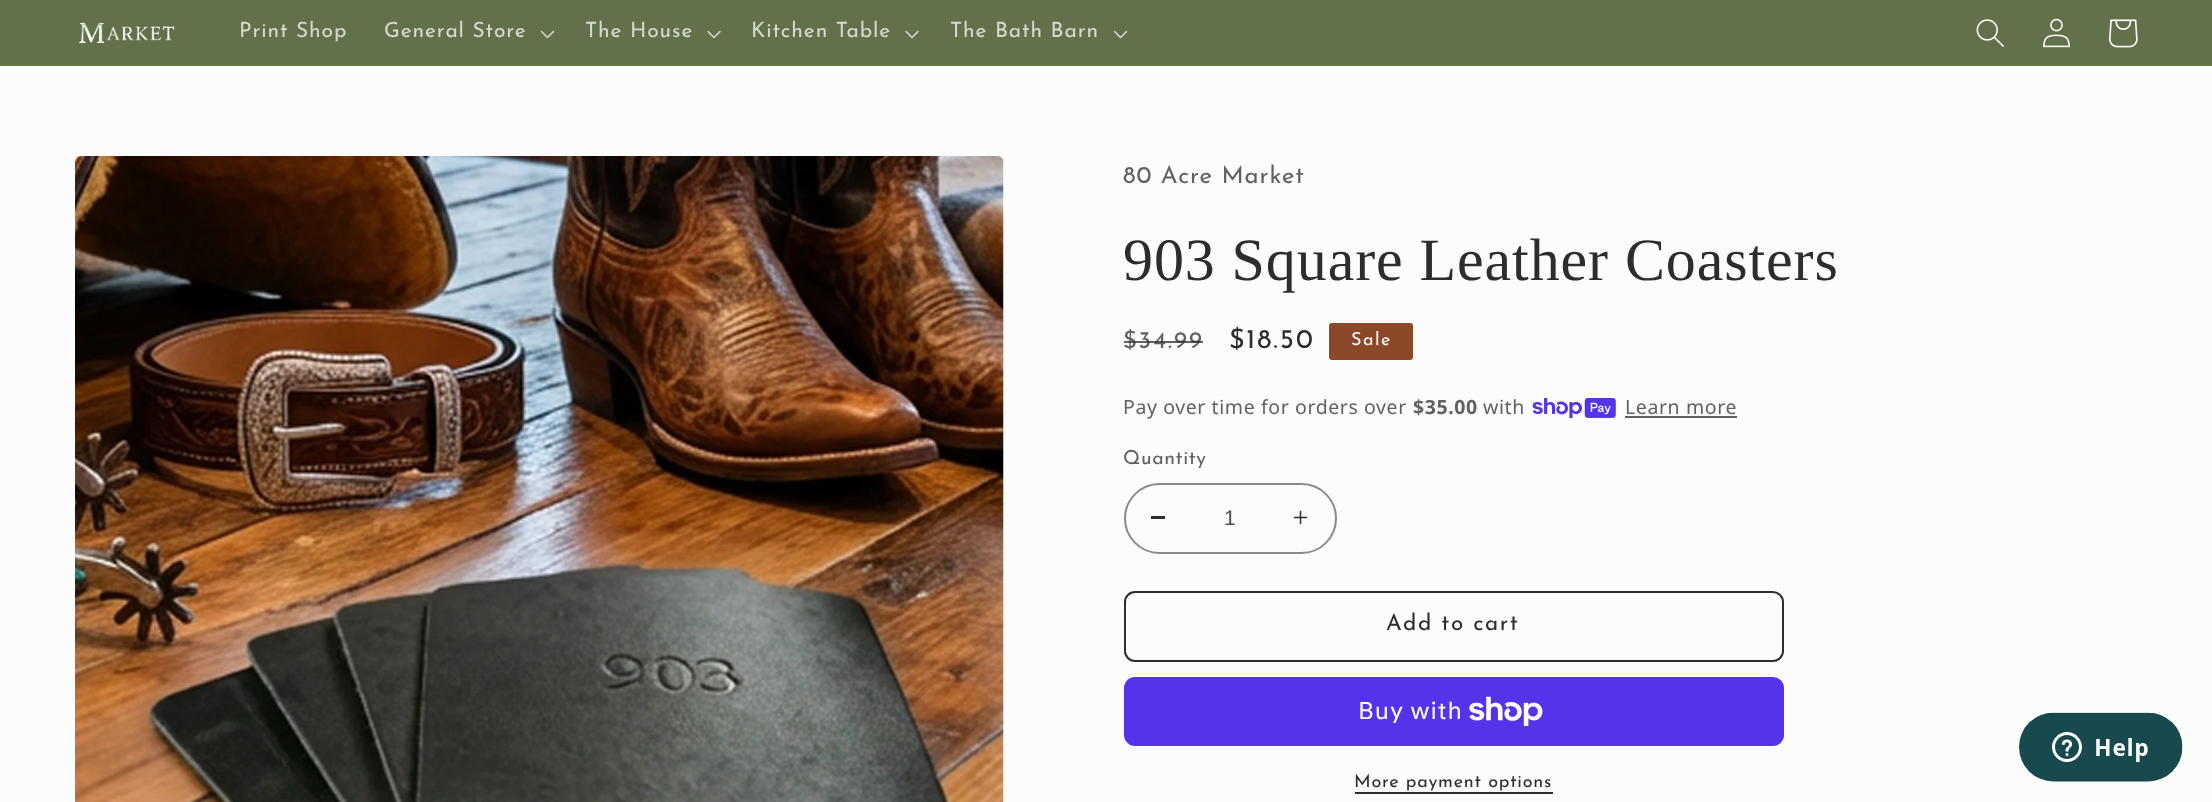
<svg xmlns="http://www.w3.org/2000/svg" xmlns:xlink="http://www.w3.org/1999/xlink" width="2212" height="802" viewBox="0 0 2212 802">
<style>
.cls-1{font:21px Josefin Sans;letter-spacing:0.9px;fill:#d6d9d0}
.cls-2{font:24px Josefin Sans;letter-spacing:0.9px;fill:#606160}
.cls-3{font:60px Liberation Serif;letter-spacing:0.9px;fill:#2c2d2c}
.cls-4{font:24px Josefin Sans;letter-spacing:2px;fill:#606160}
.cls-5{font:27px Josefin Sans;letter-spacing:2px;fill:#2c2d2c}
.cls-6{font:18px Josefin Sans;letter-spacing:1.5px;fill:#fcfcfc}
.cls-7{font:19.5px Noto Sans;letter-spacing:0.6px;fill:#606160}
.cls-8{font:bold 19.5px Noto Sans;letter-spacing:0.6px;fill:#606160}
.cls-9{font:19.5px Josefin Sans;letter-spacing:0.6px;fill:#606160}
.cls-10{font:21px Liberation Sans;fill:#4b4c4b}
.cls-11{font:22.5px Josefin Sans;letter-spacing:1.5px;fill:#2c2d2c}
.cls-12{font:24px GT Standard;letter-spacing:0.9px;fill:#fcfcfc}
.cls-13{font:18px Josefin Sans;letter-spacing:0.75px;fill:#2c2d2c}
</style>
<rect width="100%" height="100%" fill="#fcfcfc"/>
<rect fill="#62714a" x="0" y="0" width="2212" height="66"/>
<image xlink:href="image0.png" x="79" y="22" width="96" height="22"/>
<image xlink:href="image1.png" x="540" y="30" width="15" height="9"/>
<image xlink:href="image2.png" x="707" y="30" width="14" height="9"/>
<image xlink:href="image2.png" x="905" y="30" width="14" height="9"/>
<image xlink:href="image1.png" x="1113" y="30" width="15" height="9"/>
<image xlink:href="image3.png" x="1976" y="19" width="28" height="28"/>
<image xlink:href="image4.png" x="2043" y="18" width="27" height="30"/>
<image xlink:href="image5.png" x="2109" y="19" width="29" height="29"/>
<image xlink:href="image6.png" x="75" y="156" width="929" height="646"/>
<rect fill="#8c4829" stroke="#8c4829" stroke-width="2" x="1330" y="324" width="82" height="35" rx="2"/>
<image xlink:href="image7.png" x="1532" y="398" width="84" height="21"/>
<rect fill="#606160" x="1625" y="416" width="112" height="2"/>
<rect fill="#2c2d2c" x="1151" y="516" width="14" height="3"/>
<image xlink:href="image8.png" x="1293" y="510" width="15" height="15"/>
<rect fill="none" stroke="#8a8a8a" stroke-width="2" x="1125" y="484" width="211" height="69" rx="34.5"/>
<rect fill="none" stroke="#2c2d2c" stroke-width="2" x="1125" y="592" width="658" height="69" rx="10"/>
<rect fill="#5433eb" x="1124" y="677" width="660" height="69" rx="11"/>
<image xlink:href="image9.png" x="1469" y="696" width="74" height="30"/>
<rect fill="#2c2d2c" x="1355" y="792" width="198" height="2"/>
<image xlink:href="image10.png" x="2019" y="712" width="164" height="70"/>
<text class="cls-1" x="239" y="37">Print Shop</text>
<text class="cls-1" x="384" y="37">General Store</text>
<text class="cls-1" x="585" y="37">The House</text>
<text class="cls-1" x="751" y="37">Kitchen Table</text>
<text class="cls-1" x="950" y="37">The Bath Barn</text>
<text class="cls-2" x="1123" y="183">80 Acre Market</text>
<text class="cls-3" x="1123" y="280">903 Square Leather Coasters</text>
<text class="cls-4" x="1123" y="348">$34.99</text>
<rect fill="#2c2d2c" fill-opacity="0.75" x="1124" y="341" width="79" height="2"/>
<text class="cls-5" x="1229" y="348">$18.50</text>
<text class="cls-6" x="1351" y="345">Sale</text>
<text class="cls-7" x="1123" y="414">Pay over time for orders over</text>
<text class="cls-8" x="1413" y="414">$35.00</text>
<text class="cls-7" x="1483" y="414">with</text>
<text class="cls-7" x="1625" y="414">Learn more</text>
<text class="cls-9" x="1123" y="464">Quantity</text>
<text class="cls-10" x="1224" y="525">1</text>
<text class="cls-11" x="1386" y="630">Add to cart</text>
<text class="cls-12" x="1358" y="719">Buy with</text>
<text class="cls-13" x="1354" y="787">More payment options</text>
</svg>
